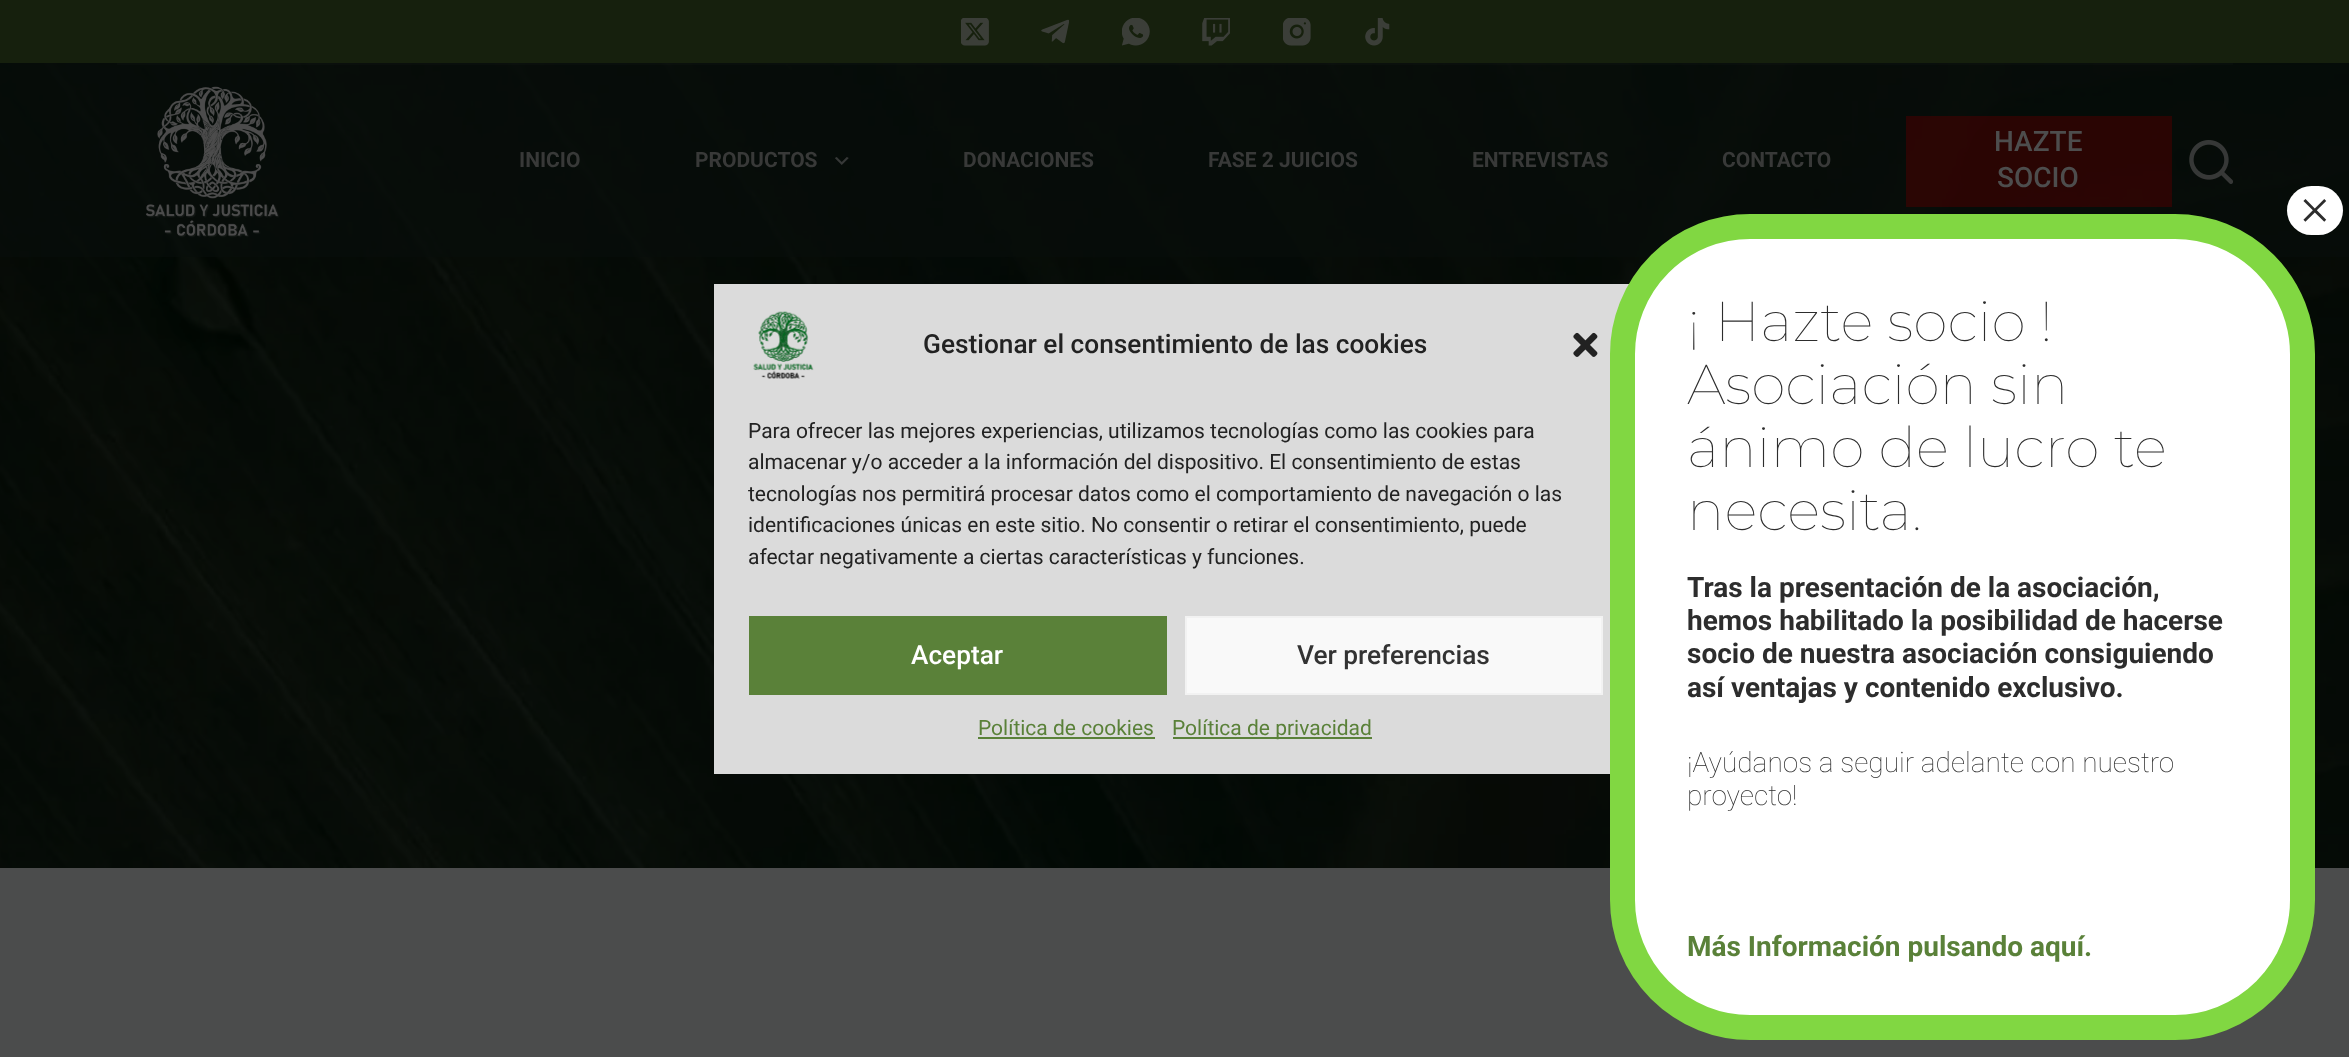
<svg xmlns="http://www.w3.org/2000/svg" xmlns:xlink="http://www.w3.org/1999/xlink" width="2349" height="1057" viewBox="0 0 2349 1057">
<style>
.cls-1{font:bold 21px Roboto;fill:#383938}
.cls-2{font:500 28px Roboto;fill:#4d4d4d}
.cls-3{font:500 26.25px Roboto;fill:#222222}
.cls-4{font:21px Roboto;fill:#222222}
.cls-5{font:500 26.25px Roboto;fill:#ffffff}
.cls-6{font:500 26.25px Roboto;fill:#333333}
.cls-7{font:21px Roboto;fill:#5a8139}
.cls-8{font:56px Liberation Serif;fill:#2d2d2d}
.cls-9{font:100 56px Montserrat;fill:#2d2d2d}
.cls-10{font:bold 28px Roboto;fill:#2d2d2d}
.cls-11{font:100 28px Roboto;fill:#2d2d2d}
.cls-12{font:bold 28px Roboto;fill:#5a8139}
</style>
<rect width="100%" height="100%" fill="#4b4c4c"/>
<image xlink:href="image0.png" x="0" y="63" width="2349" height="805"/>
<rect fill="#16200d" x="0" y="0" width="2349" height="63"/>
<image xlink:href="image1.png" x="961" y="18" width="28" height="28"/>
<image xlink:href="image2.png" x="1041" y="19" width="28" height="25"/>
<image xlink:href="image3.png" x="1122" y="18" width="28" height="28"/>
<image xlink:href="image4.png" x="1202" y="18" width="28" height="28"/>
<image xlink:href="image5.png" x="1283" y="18" width="28" height="28"/>
<image xlink:href="image6.png" x="1365" y="18" width="25" height="28"/>
<rect fill="#080d0b" fill-opacity="0.66" x="0" y="63" width="2349" height="194"/>
<rect fill="#4d4d4d" fill-opacity="0.05" x="117" y="63" width="2116" height="2"/>
<image xlink:href="image7.png" x="146" y="86" width="134" height="152"/>
<image xlink:href="image8.png" x="835" y="157" width="14" height="8"/>
<rect fill="#4d0000" fill-opacity="0.52" x="1906" y="116" width="266" height="91"/>
<image xlink:href="image9.png" x="2189" y="140" width="44" height="44"/>
<rect fill="#dbdbdb" x="714" y="284" width="915" height="490"/>
<image xlink:href="image10.png" x="753" y="311" width="61" height="68"/>
<image xlink:href="image11.png" x="1573" y="332" width="25" height="25"/>
<rect fill="#5a8139" x="749" y="616" width="418" height="79"/>
<rect fill="#f9f9f9" stroke="#f2f2f2" stroke-width="2" x="1186" y="617" width="416" height="77"/>
<rect fill="#5a8139" x="978" y="737" width="177" height="2"/>
<rect fill="#5a8139" x="1173" y="737" width="199" height="2"/>
<rect fill="#ffffff" stroke="#81d742" stroke-width="25" x="1622.5" y="226.5" width="680" height="801" rx="127.5"/>
<rect fill="#ffffff" x="2287" y="186" width="56" height="49" rx="24.5"/>
<text class="cls-1" x="519" y="167">INICIO</text>
<text class="cls-1" x="695" y="167">PRODUCTOS</text>
<text class="cls-1" x="963" y="167">DONACIONES</text>
<text class="cls-1" x="1208" y="167">FASE 2 JUICIOS</text>
<text class="cls-1" x="1472" y="167">ENTREVISTAS</text>
<text class="cls-1" x="1722" y="167">CONTACTO</text>
<text class="cls-2" x="1994" y="151">HAZTE</text>
<text class="cls-2" x="1997" y="187">SOCIO</text>
<text class="cls-3" x="923" y="353">Gestionar el consentimiento de las cookies</text>
<text class="cls-4"><tspan x="748" y="438">Para ofrecer las mejores experiencias, utilizamos tecnologías como las cookies para</tspan><tspan x="748" y="469">almacenar y/o acceder a la información del dispositivo. El consentimiento de estas</tspan><tspan x="748" y="501">tecnologías nos permitirá procesar datos como el comportamiento de navegación o las</tspan><tspan x="748" y="532">identificaciones únicas en este sitio. No consentir o retirar el consentimiento, puede</tspan><tspan x="748" y="564">afectar negativamente a ciertas características y funciones.</tspan></text>
<text class="cls-5" x="911" y="664">Aceptar</text>
<text class="cls-6" x="1297" y="664">Ver preferencias</text>
<text class="cls-7" x="978" y="735">Política de cookies</text>
<text class="cls-7" x="1172" y="735">Política de privacidad</text>
<text class="cls-8" x="2299" y="229">×</text>
<text class="cls-9"><tspan x="1687" y="341">¡ Hazte socio !</tspan><tspan x="1687" y="404">Asociación sin</tspan><tspan x="1687" y="467">ánimo de lucro te</tspan><tspan x="1687" y="530">necesita.</tspan></text>
<text class="cls-10"><tspan x="1687" y="597">Tras la presentación de la asociación,</tspan><tspan x="1687" y="630">hemos habilitado la posibilidad de hacerse</tspan><tspan x="1687" y="663">socio de nuestra asociación consiguiendo</tspan><tspan x="1687" y="697">así ventajas y contenido exclusivo.</tspan></text>
<text class="cls-11"><tspan x="1687" y="772">¡Ayúdanos a seguir adelante con nuestro</tspan><tspan x="1687" y="805">proyecto!</tspan></text>
<text class="cls-12" x="1687" y="956">Más Información pulsando aquí.</text>
</svg>
